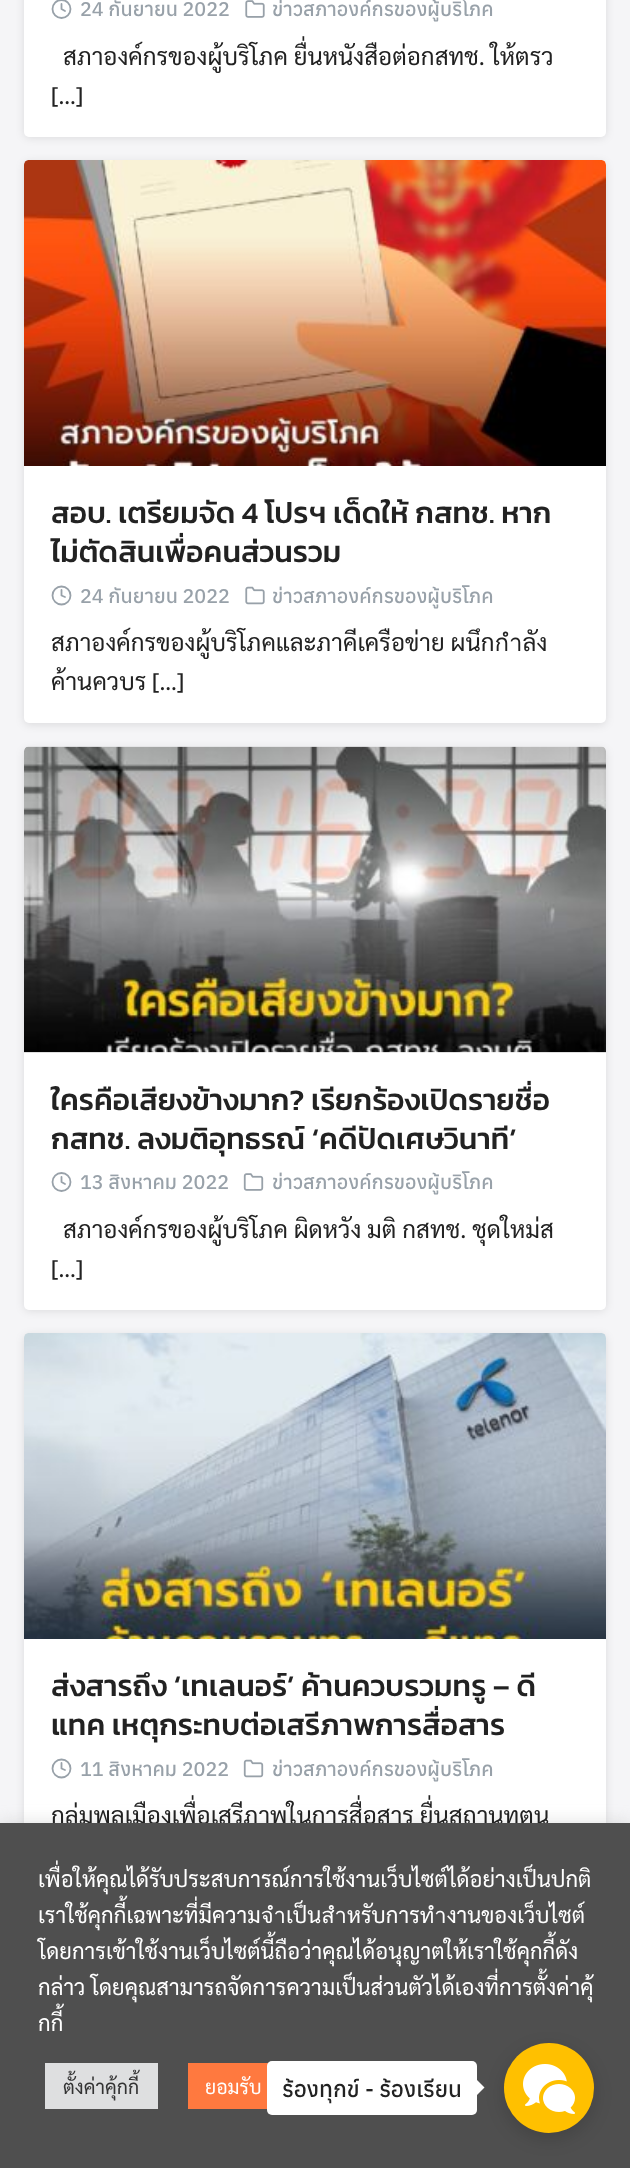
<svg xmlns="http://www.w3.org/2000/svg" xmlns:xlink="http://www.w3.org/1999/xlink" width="630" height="2168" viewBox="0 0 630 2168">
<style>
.cls-1{font:500 19.75px Anuphan;fill:#98a1a9}
.cls-2{font:24px Sarabun;fill:#222222}
.cls-3{font:500 30px Kanit;fill:#222222}
.cls-4{font:22px Sarabun;fill:#ffffff}
.cls-5{font:19.5px Sarabun;fill:#333333}
.cls-6{font:19.5px Sarabun;fill:#ffffff}
.cls-7{font:500 22.5px Anuphan;fill:#222222}
</style>
<rect width="100%" height="100%" fill="#f5f5f7"/>
<rect fill="#000000" fill-opacity="0.1" filter="blur(4px)" x="24" y="-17" width="582" height="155" rx="5"/>
<rect fill="#ffffff" x="24" y="-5" width="582" height="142" rx="5"/>
<circle fill="none" stroke="#98a1a9" stroke-width="1.8" cx="61.5" cy="9" r="9"/>
<path fill="none" stroke="#98a1a9" stroke-width="1.8" stroke-linecap="round" stroke-linejoin="round" d="M61.5 4V9L65 11"/>
<image xlink:href="image0.png" x="245" y="0" width="20" height="18"/>
<rect fill="#000000" fill-opacity="0.1" filter="blur(4px)" x="24" y="162" width="582" height="563" rx="5"/>
<rect fill="#ffffff" x="24" y="161" width="582" height="562" rx="5"/>
<image xlink:href="image1.png" x="24" y="160" width="582" height="306"/>
<circle fill="none" stroke="#98a1a9" stroke-width="1.8" cx="61.5" cy="595.5" r="9"/>
<path fill="none" stroke="#98a1a9" stroke-width="1.8" stroke-linecap="round" stroke-linejoin="round" d="M61.5 590V595.5L65 597"/>
<image xlink:href="image2.png" x="245" y="586" width="20" height="19"/>
<rect fill="#000000" fill-opacity="0.1" filter="blur(4px)" x="24" y="749" width="582" height="562" rx="5"/>
<rect fill="#ffffff" x="24" y="747" width="582" height="563" rx="5"/>
<image xlink:href="image3.png" x="24" y="746" width="582" height="307"/>
<circle fill="none" stroke="#98a1a9" stroke-width="1.8" cx="61.5" cy="1182" r="9"/>
<path fill="none" stroke="#98a1a9" stroke-width="1.8" stroke-linecap="round" stroke-linejoin="round" d="M61.5 1177V1182L65 1184"/>
<image xlink:href="image4.png" x="243" y="1173" width="21" height="18"/>
<rect fill="#000000" fill-opacity="0.1" filter="blur(4px)" x="24" y="1335" width="582" height="563" rx="5"/>
<rect fill="#ffffff" x="24" y="1334" width="582" height="562" rx="5"/>
<image xlink:href="image5.png" x="24" y="1333" width="582" height="306"/>
<circle fill="none" stroke="#98a1a9" stroke-width="1.8" cx="61.5" cy="1768.5" r="9"/>
<path fill="none" stroke="#98a1a9" stroke-width="1.8" stroke-linecap="round" stroke-linejoin="round" d="M61.5 1763V1768.5L65 1770"/>
<image xlink:href="image6.png" x="243" y="1759" width="21" height="19"/>
<rect fill="#acabab" fill-opacity="0.3" filter="blur(7.5px)" x="0" y="1821" width="630" height="347"/>
<text class="cls-1" x="80" y="16">24 กันยายน 2022</text>
<text class="cls-1" x="272" y="16">ข่าวสภาองค์กรของผู้บริโภค</text>
<text class="cls-2" x="63" y="65">สภาองค์กรของผู้บริโภค ยื่นหนังสือต่อกสทช. ให้ตรว</text>
<text class="cls-2" x="51" y="104">[…]</text>
<text class="cls-3"><tspan x="51" y="523">สอบ. เตรียมจัด 4 โปรฯ เด็ดให้ กสทช. หาก</tspan><tspan x="51" y="562">ไม่ตัดสินเพื่อคนส่วนรวม</tspan></text>
<text class="cls-1" x="80" y="603">24 กันยายน 2022</text>
<text class="cls-1" x="272" y="603">ข่าวสภาองค์กรของผู้บริโภค</text>
<text class="cls-2"><tspan x="51" y="651">สภาองค์กรของผู้บริโภคและภาคีเครือข่าย ผนึกกำลัง</tspan><tspan x="51" y="690">ค้านควบร […]</tspan></text>
<text class="cls-3"><tspan x="51" y="1110">ใครคือเสียงข้างมาก? เรียกร้องเปิดรายชื่อ</tspan><tspan x="51" y="1149">กสทช. ลงมติอุทธรณ์ ‘คดีปัดเศษวินาที’</tspan></text>
<text class="cls-1" x="80" y="1189">13 สิงหาคม 2022</text>
<text class="cls-1" x="272" y="1189">ข่าวสภาองค์กรของผู้บริโภค</text>
<text class="cls-2" x="63" y="1238">สภาองค์กรของผู้บริโภค ผิดหวัง มติ กสทช. ชุดใหม่ส</text>
<text class="cls-2" x="51" y="1277">[…]</text>
<text class="cls-3"><tspan x="51" y="1696">ส่งสารถึง ‘เทเลนอร์’ ค้านควบรวมทรู – ดี</tspan><tspan x="51" y="1735">แทค เหตุกระทบต่อเสรีภาพการสื่อสาร</tspan></text>
<text class="cls-1" x="80" y="1776">11 สิงหาคม 2022</text>
<text class="cls-1" x="272" y="1776">ข่าวสภาองค์กรของผู้บริโภค</text>
<text class="cls-2" x="51" y="1824">กลุ่มพลเมืองเพื่อเสรีภาพในการสื่อสาร ยื่นสถานทูตน</text>
<rect fill="#4f4f4f" x="0" y="1823" width="630" height="345"/>
<text class="cls-4"><tspan x="38" y="1887">เพื่อให้คุณได้รับประสบการณ์การใช้งานเว็บไซต์ได้อย่างเป็นปกติ</tspan><tspan x="38" y="1923">เราใช้คุกกี้เฉพาะที่มีความจำเป็นสำหรับการทำงานของเว็บไซต์</tspan><tspan x="38" y="1959">โดยการเข้าใช้งานเว็บไซต์นี้ถือว่าคุณได้อนุญาตให้เราใช้คุกกี้ดัง</tspan><tspan x="38" y="1995">กล่าว โดยคุณสามารถจัดการความเป็นส่วนตัวได้เองที่การตั้งค่าคุ้</tspan><tspan x="38" y="2031">กกี้</tspan></text>
<rect fill="#dedfe0" x="45" y="2063" width="113" height="46"/>
<text class="cls-5" x="63" y="2094">ตั้งค่าคุ้กกี้</text>
<rect fill="#ff793f" x="188" y="2063" width="80" height="46"/>
<text class="cls-6" x="205" y="2094">ยอมรับ</text>
<rect fill="#000000" fill-opacity="0.15" filter="blur(9px)" x="504" y="2049" width="90" height="90" rx="45"/>
<circle fill="#ffc000" cx="549" cy="2088" r="45"/>
<rect fill="#ffffff" x="267" y="2061" width="210" height="54" rx="5"/>
<text class="cls-7" x="282" y="2097">ร้องทุกข์ - ร้องเรียน</text>
<path fill="#ffffff" d="M477 2095V2080L484.5 2087.5Z"/>
<image xlink:href="image7.png" x="523" y="2064" width="52" height="50"/>
</svg>
